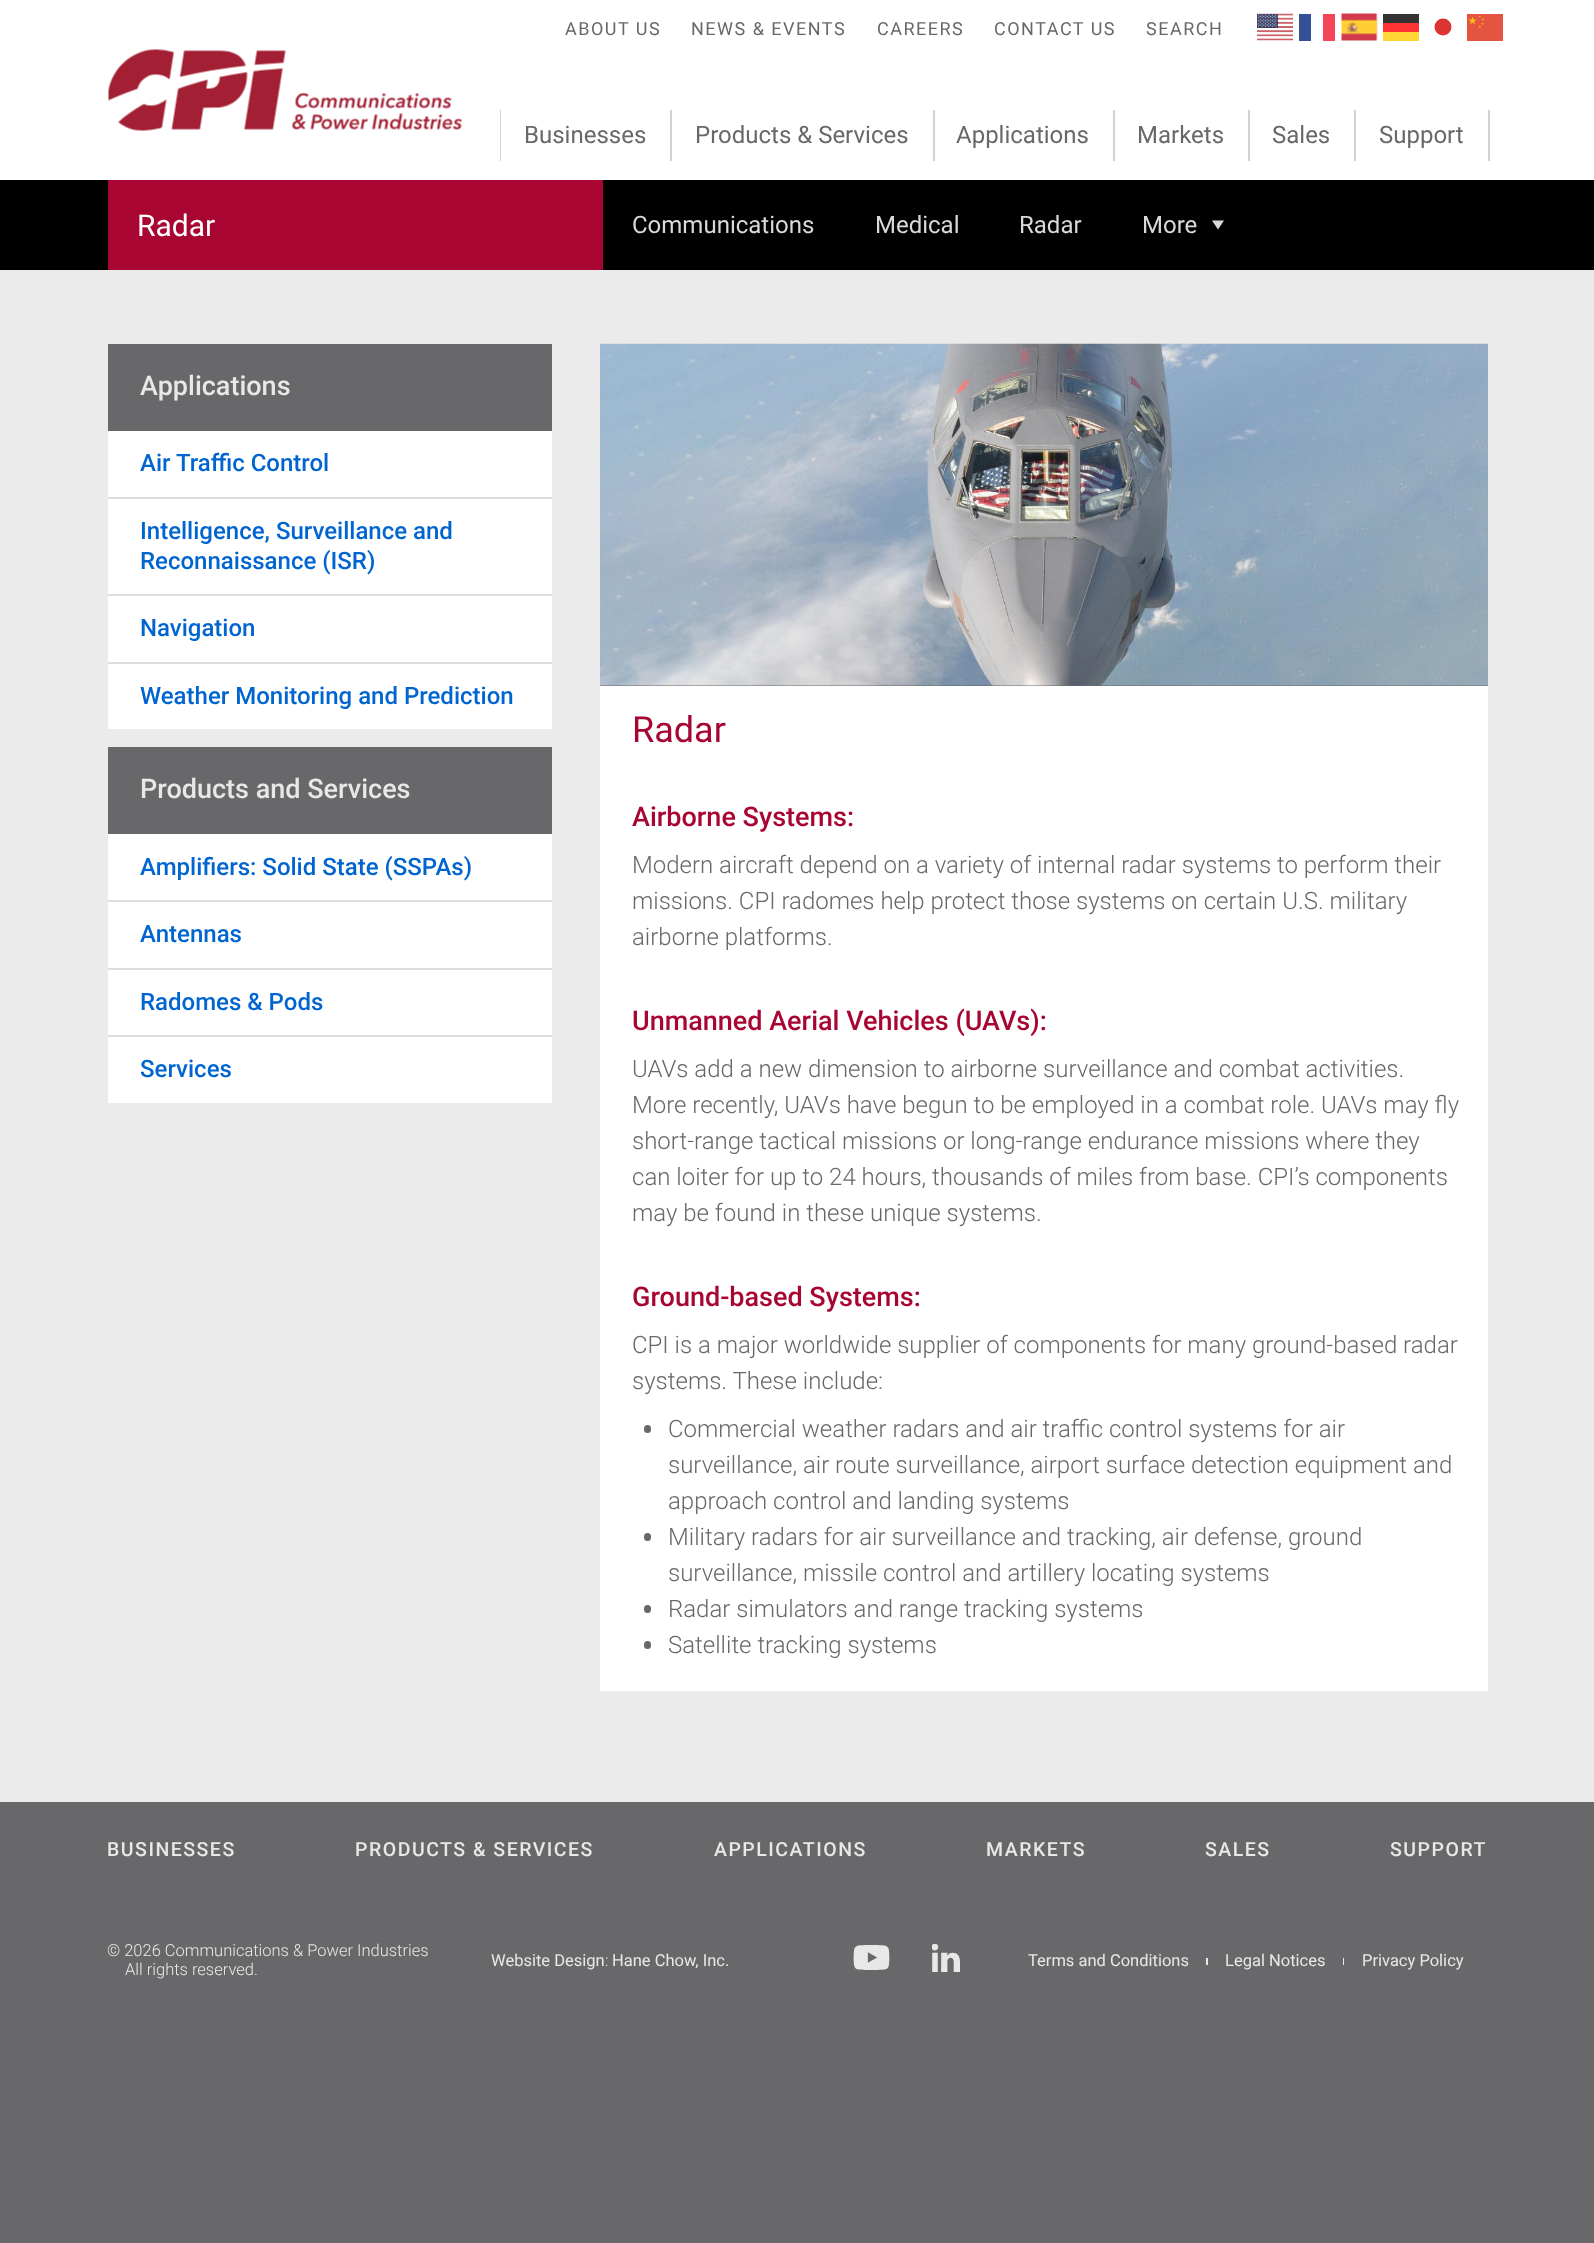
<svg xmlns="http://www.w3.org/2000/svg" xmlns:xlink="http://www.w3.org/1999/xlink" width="1594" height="2243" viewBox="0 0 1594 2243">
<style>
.cls-1{font:18px Roboto;letter-spacing:1.5px;fill:#68686a}
.cls-2{font:24px Roboto;fill:#68686a}
.cls-3{font:30px Roboto;fill:#ffffff}
.cls-4{font:24px Roboto;fill:#d9d9d9}
.cls-5{font:500 27px Roboto;fill:#e9e8e8}
.cls-6{font:500 24px Roboto;fill:#0065d1}
.cls-7{font:36px Roboto;fill:#a80532}
.cls-8{font:500 27px Roboto;fill:#a80532}
.cls-9{font:300 24px Roboto;fill:#68686a}
.cls-10{font:500 19.5px Roboto;letter-spacing:1.5px;fill:#e9e8e8}
.cls-11{font:300 16.5px Roboto;fill:#e9e8e8}
.cls-12{font:16.5px Roboto;fill:#e9e8e8}
</style>
<rect width="100%" height="100%" fill="#68686a"/>
<rect fill="#ffffff" x="0" y="0" width="1594" height="180"/>
<image xlink:href="image0.png" x="108" y="49" width="355" height="82"/>
<image xlink:href="image1.png" x="1257" y="13" width="36" height="28"/>
<rect fill="#335199" x="1299" y="14" width="12" height="27"/>
<rect fill="#f54659" x="1323" y="14" width="12" height="27"/>
<image xlink:href="image2.png" x="1341" y="13" width="37" height="28"/>
<rect fill="#333333" x="1383" y="14" width="36" height="9"/>
<circle fill="#dc3333" cx="1443" cy="27" r="8.5"/>
<image xlink:href="image3.png" x="1467" y="14" width="36" height="27"/>
<rect fill="#ff3333" x="1383" y="23" width="36" height="9"/>
<rect fill="#ffd633" x="1383" y="32" width="36" height="9"/>
<rect fill="#d2d3d6" x="500" y="110" width="1" height="51"/>
<rect fill="#d2d3d6" x="670" y="110" width="2" height="51"/>
<rect fill="#d2d3d6" x="933" y="110" width="2" height="51"/>
<rect fill="#d2d3d6" x="1113" y="110" width="2" height="51"/>
<rect fill="#d2d3d6" x="1248" y="110" width="2" height="51"/>
<rect fill="#d2d3d6" x="1354" y="110" width="2" height="51"/>
<rect fill="#d2d3d6" x="1488" y="110" width="2" height="51"/>
<rect fill="#ebebeb" x="0" y="270" width="1594" height="1532"/>
<rect fill="#000000" x="0" y="180" width="1594" height="90"/>
<rect fill="#a80532" x="108" y="180" width="495" height="90"/>
<path fill="#d9d9d9" d="M1212 220.5H1224L1218 229.5Z"/>
<rect fill="#ffffff" x="108" y="431" width="444" height="298"/>
<rect fill="#68686a" x="108" y="344" width="444" height="87"/>
<rect fill="#dddddd" x="108" y="497" width="444" height="2"/>
<rect fill="#dddddd" x="108" y="594" width="444" height="2"/>
<rect fill="#dddddd" x="108" y="662" width="444" height="2"/>
<rect fill="#ffffff" x="108" y="834" width="444" height="269"/>
<rect fill="#68686a" x="108" y="747" width="444" height="87"/>
<rect fill="#dddddd" x="108" y="900" width="444" height="2"/>
<rect fill="#dddddd" x="108" y="968" width="444" height="2"/>
<rect fill="#dddddd" x="108" y="1035" width="444" height="2"/>
<rect fill="#ffffff" x="600" y="686" width="888" height="1005"/>
<rect fill="#68686a" x="600" y="685" width="888" height="1"/>
<image xlink:href="image4.png" x="600" y="343" width="888" height="343"/>
<rect fill="#68686a" x="644" y="1425" width="7" height="8" rx="3.5"/>
<rect fill="#68686a" x="644" y="1533" width="7" height="8" rx="3.5"/>
<rect fill="#68686a" x="644" y="1605" width="7" height="8" rx="3.5"/>
<rect fill="#68686a" x="644" y="1641" width="7" height="8" rx="3.5"/>
<image xlink:href="image5.png" x="853" y="1945" width="37" height="25"/>
<image xlink:href="image6.png" x="932" y="1944" width="28" height="28"/>
<rect fill="#e9e8e8" x="1206" y="1958" width="2" height="7"/>
<rect fill="#e9e8e8" x="1343" y="1958" width="1" height="7"/>
<text class="cls-1" x="565" y="35">ABOUT US</text>
<text class="cls-1" x="691" y="35">NEWS &amp; EVENTS</text>
<text class="cls-1" x="877" y="35">CAREERS</text>
<text class="cls-1" x="994" y="35">CONTACT US</text>
<text class="cls-1" x="1146" y="35">SEARCH</text>
<text class="cls-2" x="524" y="143">Businesses</text>
<text class="cls-2" x="695" y="143">Products &amp; Services</text>
<text class="cls-2" x="956" y="143">Applications</text>
<text class="cls-2" x="1137" y="143">Markets</text>
<text class="cls-2" x="1272" y="143">Sales</text>
<text class="cls-2" x="1379" y="143">Support</text>
<text class="cls-3" x="137" y="236">Radar</text>
<text class="cls-4" x="632" y="233">Communications</text>
<text class="cls-4" x="875" y="233">Medical</text>
<text class="cls-4" x="1019" y="233">Radar</text>
<text class="cls-4" x="1142" y="233">More</text>
<text class="cls-5" x="140" y="395">Applications</text>
<text class="cls-6" x="140" y="471">Air Traffic Control</text>
<text class="cls-6"><tspan x="140" y="539">Intelligence, Surveillance and</tspan><tspan x="140" y="569">Reconnaissance (ISR)</tspan></text>
<text class="cls-6" x="140" y="636">Navigation</text>
<text class="cls-6" x="140" y="704">Weather Monitoring and Prediction</text>
<text class="cls-5" x="140" y="798">Products and Services</text>
<text class="cls-6" x="140" y="875">Amplifiers: Solid State (SSPAs)</text>
<text class="cls-6" x="140" y="942">Antennas</text>
<text class="cls-6" x="140" y="1010">Radomes &amp; Pods</text>
<text class="cls-6" x="140" y="1077">Services</text>
<text class="cls-7" x="632" y="742">Radar</text>
<text class="cls-8" x="632" y="826">Airborne Systems:</text>
<text class="cls-9"><tspan x="632" y="873">Modern aircraft depend on a variety of internal radar systems to perform their</tspan><tspan x="632" y="909">missions. CPI radomes help protect those systems on certain U.S. military</tspan><tspan x="632" y="945">airborne platforms.</tspan></text>
<text class="cls-8" x="632" y="1030">Unmanned Aerial Vehicles (UAVs):</text>
<text class="cls-9"><tspan x="632" y="1077">UAVs add a new dimension to airborne surveillance and combat activities.</tspan><tspan x="632" y="1113">More recently, UAVs have begun to be employed in a combat role. UAVs may fly</tspan><tspan x="632" y="1149">short-range tactical missions or long-range endurance missions where they</tspan><tspan x="632" y="1185">can loiter for up to 24 hours, thousands of miles from base. CPI’s components</tspan><tspan x="632" y="1221">may be found in these unique systems.</tspan></text>
<text class="cls-8" x="632" y="1306">Ground-based Systems:</text>
<text class="cls-9"><tspan x="632" y="1353">CPI is a major worldwide supplier of components for many ground-based radar</tspan><tspan x="632" y="1389">systems. These include:</tspan></text>
<text class="cls-9"><tspan x="668" y="1437">Commercial weather radars and air traffic control systems for air</tspan><tspan x="668" y="1473">surveillance, air route surveillance, airport surface detection equipment and</tspan><tspan x="668" y="1509">approach control and landing systems</tspan><tspan x="668" y="1545">Military radars for air surveillance and tracking, air defense, ground</tspan><tspan x="668" y="1581">surveillance, missile control and artillery locating systems</tspan><tspan x="668" y="1617">Radar simulators and range tracking systems</tspan><tspan x="668" y="1653">Satellite tracking systems</tspan></text>
<text class="cls-10" x="107" y="1856">BUSINESSES</text>
<text class="cls-10" x="355" y="1856">PRODUCTS &amp; SERVICES</text>
<text class="cls-10" x="714" y="1856">APPLICATIONS</text>
<text class="cls-10" x="986" y="1856">MARKETS</text>
<text class="cls-10" x="1205" y="1856">SALES</text>
<text class="cls-10" x="1390" y="1856">SUPPORT</text>
<text class="cls-11" x="107" y="1956">© 2026 Communications &amp; Power Industries</text>
<text class="cls-11" x="125" y="1975">All rights reserved.</text>
<text class="cls-12" x="491" y="1966">Website Design</text>
<text class="cls-11" x="605" y="1966">:</text>
<text class="cls-12" x="612" y="1966">Hane Chow, Inc.</text>
<text class="cls-12" x="1028" y="1966">Terms and Conditions</text>
<text class="cls-12" x="1225" y="1966">Legal Notices</text>
<text class="cls-12" x="1362" y="1966">Privacy Policy</text>
</svg>
